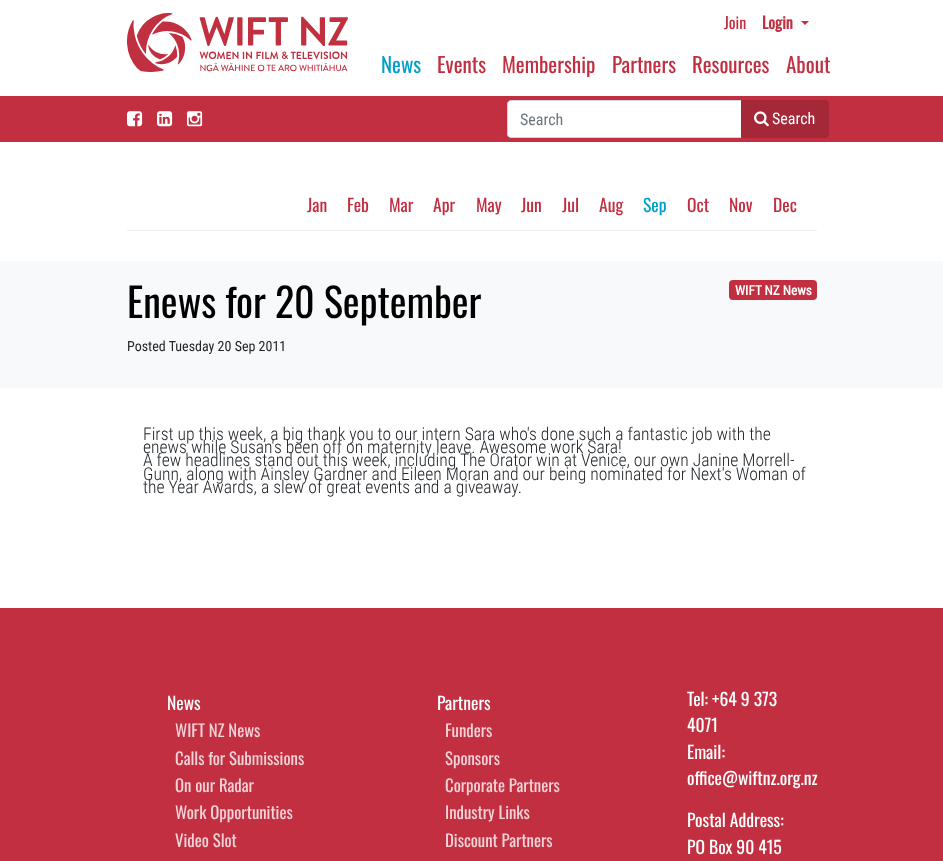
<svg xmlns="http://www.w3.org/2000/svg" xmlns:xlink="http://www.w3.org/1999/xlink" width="943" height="861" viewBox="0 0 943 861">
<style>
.cls-1{font:16px Oswald;fill:#c12f41}
.cls-2{font:bold 16px Oswald;fill:#c12f41}
.cls-3{font:21px Oswald;fill:#00a0c9}
.cls-4{font:21px Oswald;fill:#c12f41}
.cls-5{font:16px Roboto Condensed;fill:#6c757d}
.cls-6{font:16px Roboto Condensed;fill:#ffffff}
.cls-7{font:17.6px Oswald;fill:#c12f41}
.cls-8{font:17.6px Oswald;fill:#00a0c9}
.cls-9{font:40px Oswald;fill:#000000}
.cls-10{font:bold 13.25px Roboto Condensed;fill:#ffffff}
.cls-11{font:14px Roboto Condensed;fill:#212529}
.cls-12{font:300 17.6px Roboto Condensed;fill:#212529}
.cls-13{font:17.6px Oswald;fill:#ffffff}
.cls-14{font:16.75px Oswald;fill:#f3d3d7}
</style>
<rect width="100%" height="100%" fill="#ffffff"/>
<image xlink:href="image0.png" x="127" y="13" width="221" height="59"/>
<path fill="#c12f41" d="M801 21H809L805 25Z"/>
<rect fill="#c12f41" x="0" y="96" width="943" height="46"/>
<image xlink:href="image1.png" x="127" y="111" width="16" height="16"/>
<image xlink:href="image2.png" x="157" y="111" width="16" height="16"/>
<image xlink:href="image3.png" x="187" y="111" width="16" height="16"/>
<path fill="#ffffff" stroke="#ced4da" d="M511 100.5H741.5V137.5H511C509 137.5 507.5 136 507.5 134V104C507.5 102 509 100.5 511 100.5Z"/>
<path fill="#a52838" stroke="#a52838" d="M741.5 100.5H825C827 100.5 828.5 102 828.5 104V134C828.5 136 827 137.5 825 137.5H741.5Z"/>
<image xlink:href="image4.png" x="754" y="111" width="15" height="16"/>
<rect fill="#eeeeee" x="127" y="230" width="690" height="1"/>
<rect fill="#f8f9fa" x="0" y="261" width="943" height="127"/>
<rect fill="#c12f41" x="729" y="280" width="88" height="20" rx="4"/>
<rect fill="#c12f41" x="0" y="608" width="943" height="253"/>
<text class="cls-1" x="724" y="29">Join</text>
<text class="cls-2" x="762" y="29">Login</text>
<text class="cls-3" x="381" y="73">News</text>
<text class="cls-4" x="437" y="73">Events</text>
<text class="cls-4" x="502" y="73">Membership</text>
<text class="cls-4" x="612" y="73">Partners</text>
<text class="cls-4" x="692" y="73">Resources</text>
<text class="cls-4" x="786" y="73">About</text>
<text class="cls-5" x="520" y="125">Search</text>
<text class="cls-6" x="772" y="124">Search</text>
<text class="cls-7" x="307" y="212">Jan</text>
<text class="cls-7" x="347" y="212">Feb</text>
<text class="cls-7" x="389" y="212">Mar</text>
<text class="cls-7" x="433" y="212">Apr</text>
<text class="cls-7" x="476" y="212">May</text>
<text class="cls-7" x="521" y="212">Jun</text>
<text class="cls-7" x="562" y="212">Jul</text>
<text class="cls-7" x="599" y="212">Aug</text>
<text class="cls-8" x="643" y="212">Sep</text>
<text class="cls-7" x="687" y="212">Oct</text>
<text class="cls-7" x="729" y="212">Nov</text>
<text class="cls-7" x="773" y="212">Dec</text>
<text class="cls-9" x="127" y="318">Enews for 20 September</text>
<text class="cls-10" x="735" y="295">WIFT NZ News</text>
<text class="cls-11" x="127" y="351">Posted Tuesday 20 Sep 2011</text>
<text class="cls-12"><tspan x="143" y="440">First up this week, a big thank you to our intern Sara who's done such a fantastic job with the</tspan><tspan x="143" y="453">enews while Susan's been off on maternity leave. Awesome work Sara!</tspan><tspan x="143" y="466">A few headlines stand out this week, including The Orator win at Venice, our own Janine Morrell-</tspan><tspan x="143" y="480">Gunn, along with Ainsley Gardner and Eileen Moran and our being nominated for Next's Woman of</tspan><tspan x="143" y="493">the Year Awards, a slew of great events and a giveaway.</tspan></text>
<text class="cls-13" x="167" y="710">News</text>
<text class="cls-14"><tspan x="175" y="737">WIFT NZ News</tspan><tspan x="175" y="765">Calls for Submissions</tspan><tspan x="175" y="792">On our Radar</tspan><tspan x="175" y="819">Work Opportunities</tspan><tspan x="175" y="847">Video Slot</tspan></text>
<text class="cls-13" x="437" y="710">Partners</text>
<text class="cls-14"><tspan x="445" y="737">Funders</tspan><tspan x="445" y="765">Sponsors</tspan><tspan x="445" y="792">Corporate Partners</tspan><tspan x="445" y="819">Industry Links</tspan><tspan x="445" y="847">Discount Partners</tspan></text>
<text class="cls-13"><tspan x="687" y="706">Tel: +64 9 373</tspan><tspan x="687" y="732">4071</tspan><tspan x="687" y="759">Email:</tspan><tspan x="687" y="785">office@wiftnz.org.nz</tspan></text>
<text class="cls-13"><tspan x="687" y="827">Postal Address:</tspan><tspan x="687" y="854">PO Box 90 415</tspan></text>
</svg>
